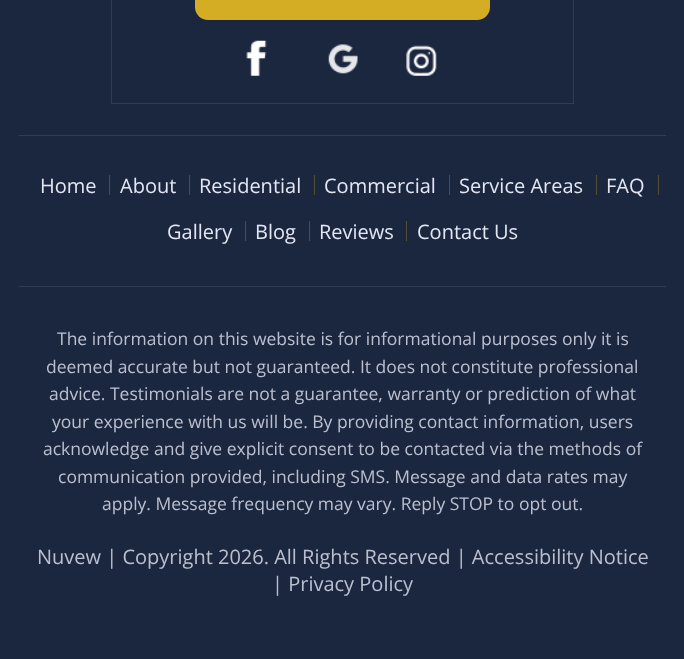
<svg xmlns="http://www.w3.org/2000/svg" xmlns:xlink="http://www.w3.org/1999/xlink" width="684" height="659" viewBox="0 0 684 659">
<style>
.cls-1{font:20px Open Sans;fill:#e2e7f3}
.cls-2{font:17.5px Open Sans;fill:#bac0cf}
.cls-3{font:20px Open Sans;fill:#bac0cf}
</style>
<rect width="100%" height="100%" fill="#1b263f"/>
<rect fill="none" stroke="#323c53" x="111.5" y="-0.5" width="462" height="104"/>
<rect fill="#d4ad25" x="195" y="-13" width="295" height="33" rx="13"/>
<image xlink:href="image0.png" x="246" y="40" width="21" height="36"/>
<image xlink:href="image1.png" x="328" y="44" width="30" height="30"/>
<image xlink:href="image2.png" x="406" y="45" width="31" height="31"/>
<rect fill="#323c53" x="19" y="135" width="647" height="1"/>
<rect fill="#323c53" x="19" y="286" width="647" height="1"/>
<rect fill="#534f37" x="109" y="175" width="1" height="20"/>
<rect fill="#534f37" x="189" y="175" width="1" height="20"/>
<rect fill="#534f37" x="314" y="175" width="1" height="20"/>
<rect fill="#534f37" x="449" y="175" width="1" height="20"/>
<rect fill="#534f37" x="596" y="175" width="1" height="20"/>
<rect fill="#534f37" x="658" y="175" width="1" height="20"/>
<rect fill="#534f37" x="245" y="221" width="1" height="20"/>
<rect fill="#534f37" x="309" y="221" width="1" height="20"/>
<rect fill="#534f37" x="406" y="221" width="1" height="20"/>
<text class="cls-1" x="40" y="193">Home</text>
<text class="cls-1" x="120" y="193">About</text>
<text class="cls-1" x="199" y="193">Residential</text>
<text class="cls-1" x="324" y="193">Commercial</text>
<text class="cls-1" x="459" y="193">Service Areas</text>
<text class="cls-1" x="606" y="193">FAQ</text>
<text class="cls-1" x="167" y="239">Gallery</text>
<text class="cls-1" x="255" y="239">Blog</text>
<text class="cls-1" x="319" y="239">Reviews</text>
<text class="cls-1" x="417" y="239">Contact Us</text>
<text class="cls-2" x="57" y="345">The information on this website is for informational purposes only it is</text>
<text class="cls-2" x="46" y="373">deemed accurate but not guaranteed. It does not constitute professional</text>
<text class="cls-2" x="49" y="400">advice. Testimonials are not a guarantee, warranty or prediction of what</text>
<text class="cls-2" x="52" y="428">your experience with us will be. By providing contact information, users</text>
<text class="cls-2" x="43" y="455">acknowledge and give explicit consent to be contacted via the methods of</text>
<text class="cls-2" x="58" y="483">communication provided, including SMS. Message and data rates may</text>
<text class="cls-2" x="102" y="510">apply. Message frequency may vary. Reply STOP to opt out.</text>
<text class="cls-3" x="37" y="564">Nuvew | Copyright 2026. All Rights Reserved | Accessibility Notice</text>
<text class="cls-3" x="272" y="591">| Privacy Policy</text>
</svg>
